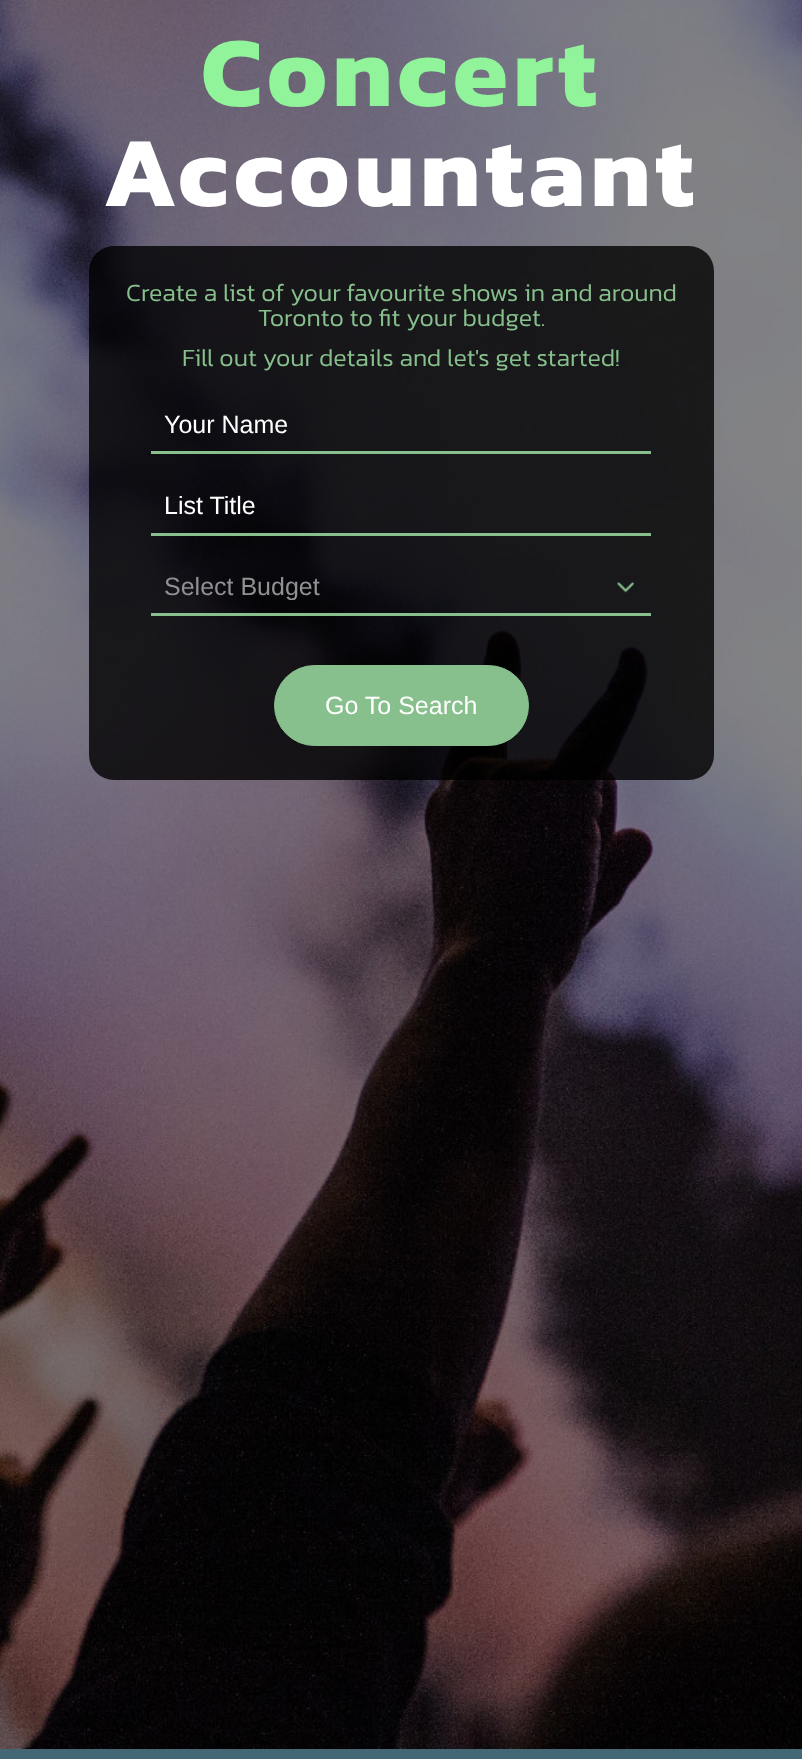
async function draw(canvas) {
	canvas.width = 802;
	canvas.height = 1759;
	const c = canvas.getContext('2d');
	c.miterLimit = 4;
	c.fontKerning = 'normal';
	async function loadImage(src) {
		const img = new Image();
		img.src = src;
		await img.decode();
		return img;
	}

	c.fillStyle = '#fff';
	c.fillRect(0, 0, 802, 1759);
	c.drawImage(await loadImage('img1.png'), 0, 0, 802, 1749);
	c.letterSpacing = '5px';
	c.font = 'bold 100px Kanit';
	c.fillStyle = '#91f39a';
	c.fillText('Concert', 201, 106);
	c.fillStyle = '#fff';
	c.fillText('Accountant', 103, 206);
	c.fillStyle = '#000000cc';
	c.beginPath();
	c.roundRect(89, 246, 625, 534, 25);
	c.fill();
	c.letterSpacing = '0px';
	c.font = '300 25px Kanit';
	c.fillStyle = '#87c08d';
	for (const [text, x, y] of [
		['Create a list of your favourite shows in and around', 126, 301],
		['Toronto to fit your budget.', 258, 326],
		['Fill out your details and let\'s get started!', 182, 366],
	]) {
		c.fillText(text, x, y);
	}
	c.fillRect(151, 451, 500, 3);
	c.font = '25px Liberation Sans';
	c.fillStyle = '#fff';
	c.fillText('Your Name', 164, 433);
	c.fillStyle = '#87c08d';
	c.fillRect(151, 533, 500, 3);
	c.fillStyle = '#fff';
	c.fillText('List Title', 164, 514);
	c.drawImage(await loadImage('img2.png'), 617, 582, 17, 11);
	c.fillStyle = '#87c08d';
	c.fillRect(151, 613, 500, 3);
	c.save();
	c.beginPath();
	c.rect(164, 573, 475, 27);
	c.clip();
	c.fillStyle = '#929093';
	c.fillText('Select Budget', 164, 595);
	c.restore();
	c.beginPath();
	c.roundRect(274.5, 665.5, 254, 80, 40);
	c.fill();
	c.strokeStyle = '#87c08d';
	c.stroke();
	c.fillStyle = '#fff';
	c.fillText('Go To Search', 325, 714);
	c.fillStyle = '#436775';
	c.fillRect(0, 1749, 802, 10);
}

draw(document.querySelector('canvas'));
